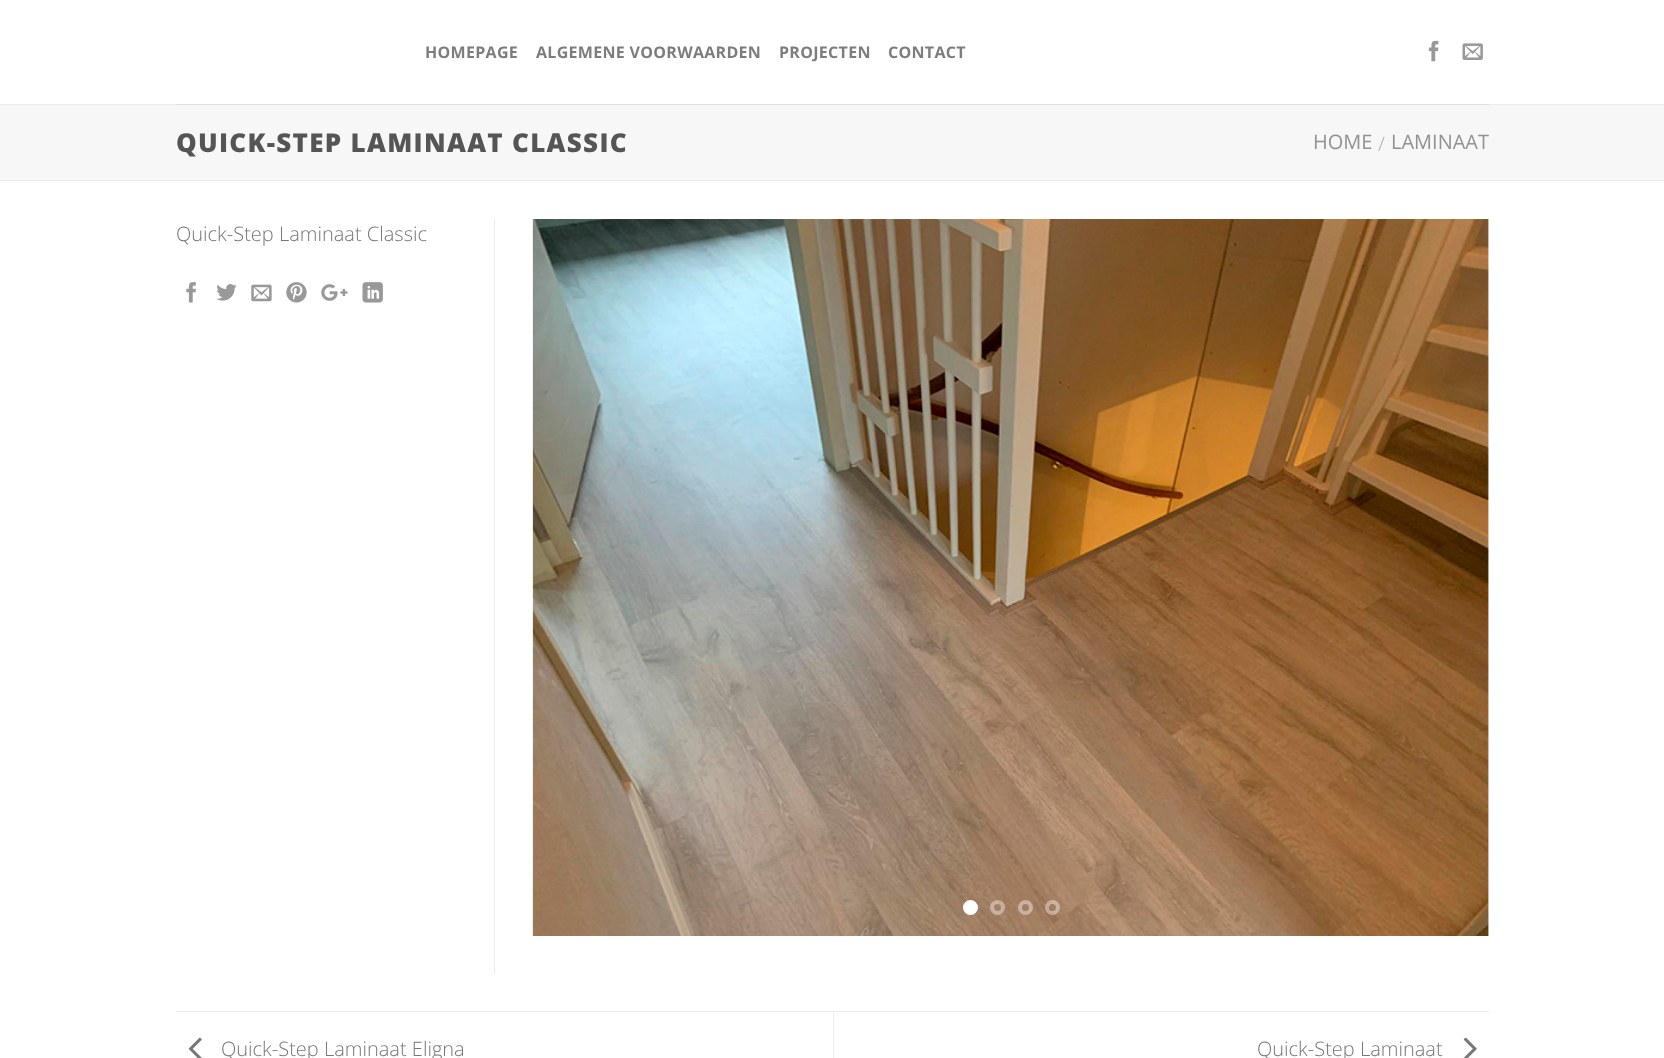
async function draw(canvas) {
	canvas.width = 1664;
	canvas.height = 1058;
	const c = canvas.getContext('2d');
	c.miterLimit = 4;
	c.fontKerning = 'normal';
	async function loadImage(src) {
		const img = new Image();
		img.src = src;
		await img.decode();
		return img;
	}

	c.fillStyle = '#fff';
	c.fillRect(0, 0, 1664, 1058);
	c.letterSpacing = '0.3px';
	c.font = 'bold 16px Open Sans';
	c.fillStyle = '#7d7d7d';
	for (const [text, x, y] of [
		['HOMEPAGE', 425, 58],
		['ALGEMENE VOORWAARDEN', 536, 58],
		['PROJECTEN', 779, 58],
		['CONTACT', 888, 58],
	]) {
		c.fillText(text, x, y);
	}
	c.drawImage(await loadImage('img1.png'), 1428, 40, 11, 22);
	c.drawImage(await loadImage('img2.png'), 1462, 43, 21, 17);
	for (const [x, y, w, h, color] of [
		[0, 104, 1664, 1, '#ececec'],
		[176, 104, 1313, 1, '#e0e0e0'],
		[0, 105, 1664, 75, '#f7f7f7'],
		[0, 180, 1664, 1, '#ececec'],
	]) {
		c.fillStyle = color;
		c.fillRect(x, y, w, h);
	}
	c.letterSpacing = '1.3px';
	c.font = '800 26px Open Sans';
	c.fillStyle = '#555';
	c.fillText('QUICK-STEP LAMINAAT CLASSIC', 176, 152);
	c.letterSpacing = '0px';
	c.font = '20px Open Sans';
	c.fillStyle = '#929292';
	c.fillText('HOME', 1313, 149);
	c.font = '300 20px Open Sans';
	c.fillStyle = '#acacac';
	c.fillText('/', 1378, 151);
	c.font = '20px Open Sans';
	c.fillStyle = '#929292';
	c.fillText('LAMINAAT', 1391, 149);
	c.fillStyle = '#ececec';
	c.fillRect(494, 219, 1, 755);
	c.font = '300 20px Open Sans';
	c.fillStyle = '#777';
	c.fillText('Quick-Step Laminaat Classic', 176, 241);
	c.drawImage(await loadImage('img3.png'), 186, 282, 10, 21);
	c.drawImage(await loadImage('img4.png'), 216, 284, 21, 17);
	c.drawImage(await loadImage('img5.png'), 251, 284, 21, 18);
	c.drawImage(await loadImage('img6.png'), 286, 282, 21, 21);
	c.drawImage(await loadImage('img7.png'), 321, 284, 27, 17);
	c.drawImage(await loadImage('img8.png'), 362, 282, 21, 21);
	c.drawImage(await loadImage('img9.png'), 532, 219, 957, 717);
	c.fillStyle = '#fff';
	c.beginPath();
	c.arc(970.5, 907.5, 5.5, 0, 2 * Math.PI);
	c.fill();
	c.strokeStyle = '#fff';
	c.lineWidth = 4;
	c.stroke();
	c.beginPath();
	c.arc(997.5, 907.5, 5.5, 0, 2 * Math.PI);
	c.strokeStyle = '#ffffff66';
	c.stroke();
	c.beginPath();
	c.arc(1025.5, 907.5, 5.5, 0, 2 * Math.PI);
	c.stroke();
	c.beginPath();
	c.arc(1052.5, 907.5, 5.5, 0, 2 * Math.PI);
	c.stroke();
	c.fillStyle = '#ececec';
	c.fillRect(176, 1011, 1313, 1);
	c.drawImage(await loadImage('img10.png'), 188, 1037, 14, 21);
	c.fillStyle = '#777';
	c.fillText('Quick-Step Laminaat Eligna', 221, 1056);
	c.fillStyle = '#ececec';
	c.fillRect(833, 1013, 1, 45);
	c.fillStyle = '#777';
	c.fillText('Quick-Step Laminaat', 1257, 1056);
	c.drawImage(await loadImage('img11.png'), 1463, 1037, 14, 21);
}

draw(document.querySelector('canvas'));
